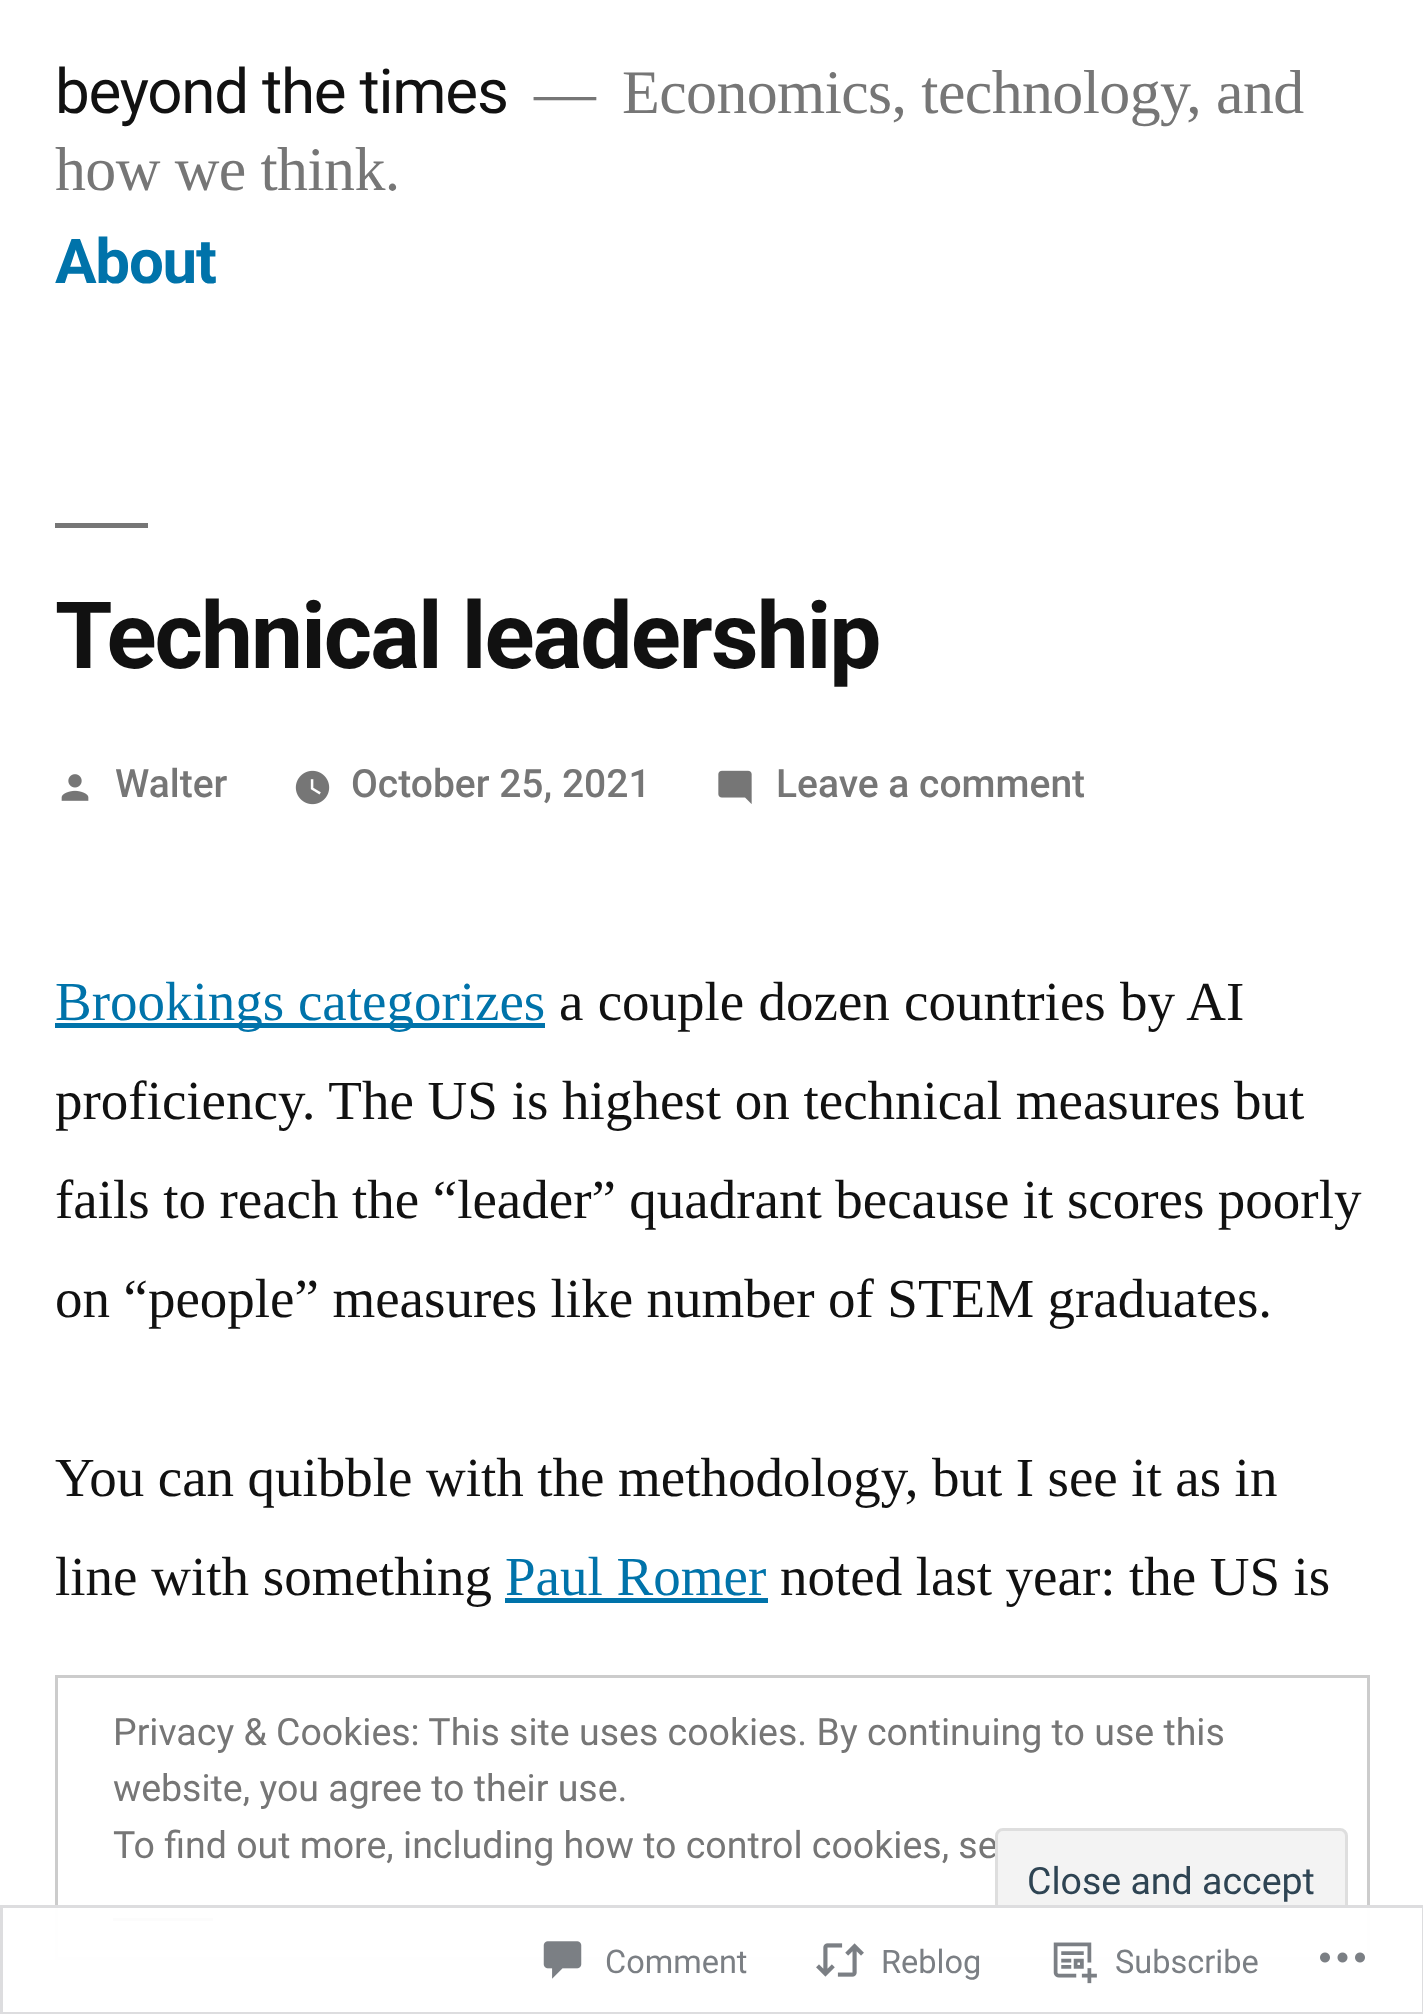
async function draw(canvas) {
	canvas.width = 1423;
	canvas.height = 2014;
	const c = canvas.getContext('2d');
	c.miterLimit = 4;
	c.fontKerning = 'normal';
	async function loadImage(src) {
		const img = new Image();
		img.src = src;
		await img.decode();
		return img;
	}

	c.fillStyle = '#fff';
	c.fillRect(0, 0, 1423, 2014);
	c.letterSpacing = '-1.25px';
	c.font = '61.9px Roboto';
	c.fillStyle = '#111';
	c.fillText('beyond the times', 55, 113);
	c.letterSpacing = '-0.6px';
	c.font = '61.9px Liberation Serif';
	c.fillStyle = '#767676';
	for (const [text, x, y] of [
		['—', 534, 113],
		['Economics, technology, and', 622, 113],
		['how we think.', 55, 190],
	]) {
		c.fillText(text, x, y);
	}
	c.letterSpacing = '-1.25px';
	c.font = 'bold 61.9px Roboto';
	c.fillStyle = '#0073aa';
	c.fillText('About', 55, 283);
	c.fillStyle = '#767676';
	c.fillRect(55, 523, 93, 5);
	c.letterSpacing = '-1.9px';
	c.font = 'bold 92.75px Roboto';
	c.fillStyle = '#111';
	c.fillText('Technical leadership', 55, 668);
	c.drawImage(await loadImage('img1.png'), 61, 774, 28, 27);
	c.letterSpacing = '0px';
	c.font = '500 39px Roboto';
	c.fillStyle = '#767676';
	c.fillText('Walter', 115, 797);
	c.drawImage(await loadImage('img2.png'), 295, 770, 35, 35);
	c.fillText('October 25, 2021', 351, 797);
	c.drawImage(await loadImage('img3.png'), 718, 770, 34, 34);
	c.fillText('Leave a comment', 776, 797);
	c.fillStyle = '#0073aa';
	c.fillRect(55, 1023, 490, 5);
	c.font = '55px Liberation Serif';
	c.fillText('Brookings categorizes', 55, 1020);
	c.wordSpacing = '0.5px';
	c.fillStyle = '#111';
	c.fillText('a couple dozen countries by AI', 559, 1020);
	c.wordSpacing = '0px';
	c.fillText('proficiency. The US is highest on technical measures but', 55, 1119);
	c.wordSpacing = '-0.25px';
	for (const [text, x, y] of [
		['fails to reach the “leader” quadrant because it scores poorly', 55, 1218],
		['on “people” measures like number of STEM graduates.', 55, 1317],
		['You can quibble with the methodology, but I see it as in', 55, 1496],
	]) {
		c.fillText(text, x, y);
	}
	c.wordSpacing = '0px';
	c.fillText('line with something', 55, 1595);
	c.fillStyle = '#0073aa';
	c.fillText('Paul Romer', 505, 1595);
	c.fillRect(505, 1598, 263, 5);
	c.wordSpacing = '-0.25px';
	c.fillStyle = '#111';
	c.fillText('noted last year: the US is', 780, 1595);
	c.strokeStyle = '#ccc';
	c.lineWidth = 3;
	c.strokeRect(56.5, 1676.5, 1312, 282);
	c.wordSpacing = '0px';
	c.font = '37.5px Roboto';
	c.fillStyle = '#767676';
	for (const [text, x, y] of [
		['Privacy & Cookies: This site uses cookies. By continuing to use this', 113, 1745],
		['website, you agree to their use.', 113, 1801],
		['To find out more, including how to control cookies, se', 113, 1858],
	]) {
		c.fillText(text, x, y);
	}
	c.fillStyle = '#f3f3f3';
	c.beginPath();
	c.roundRect(996.5, 1829.5, 350, 107, 6.5);
	c.fill();
	c.strokeStyle = '#dedede';
	c.stroke();
	c.fillStyle = '#2e4453';
	c.fillText('Close and accept', 1027, 1894);
	c.fillStyle = '#767676';
	c.fillRect(113, 1918, 100, 3);
	c.fillStyle = '#fffffffa';
	c.fillRect(55, 1905, 1315, 55);
	c.strokeStyle = '#dcdcdefa';
	c.strokeRect(1.5, 1906.5, 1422, 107);
	c.drawImage(await loadImage('img4.png'), 543, 1941, 39, 38);
	c.font = '32.5px Roboto';
	c.fillStyle = '#7b7f84';
	c.fillText('Comment', 605, 1973);
	c.drawImage(await loadImage('img5.png'), 816, 1943, 48, 34);
	c.fillText('Reblog', 881, 1973);
	c.drawImage(await loadImage('img6.png'), 1053, 1942, 44, 42);
	c.fillText('Subscribe', 1115, 1973);
	c.drawImage(await loadImage('img7.png'), 1320, 1952, 45, 11);
}

draw(document.querySelector('canvas'));
